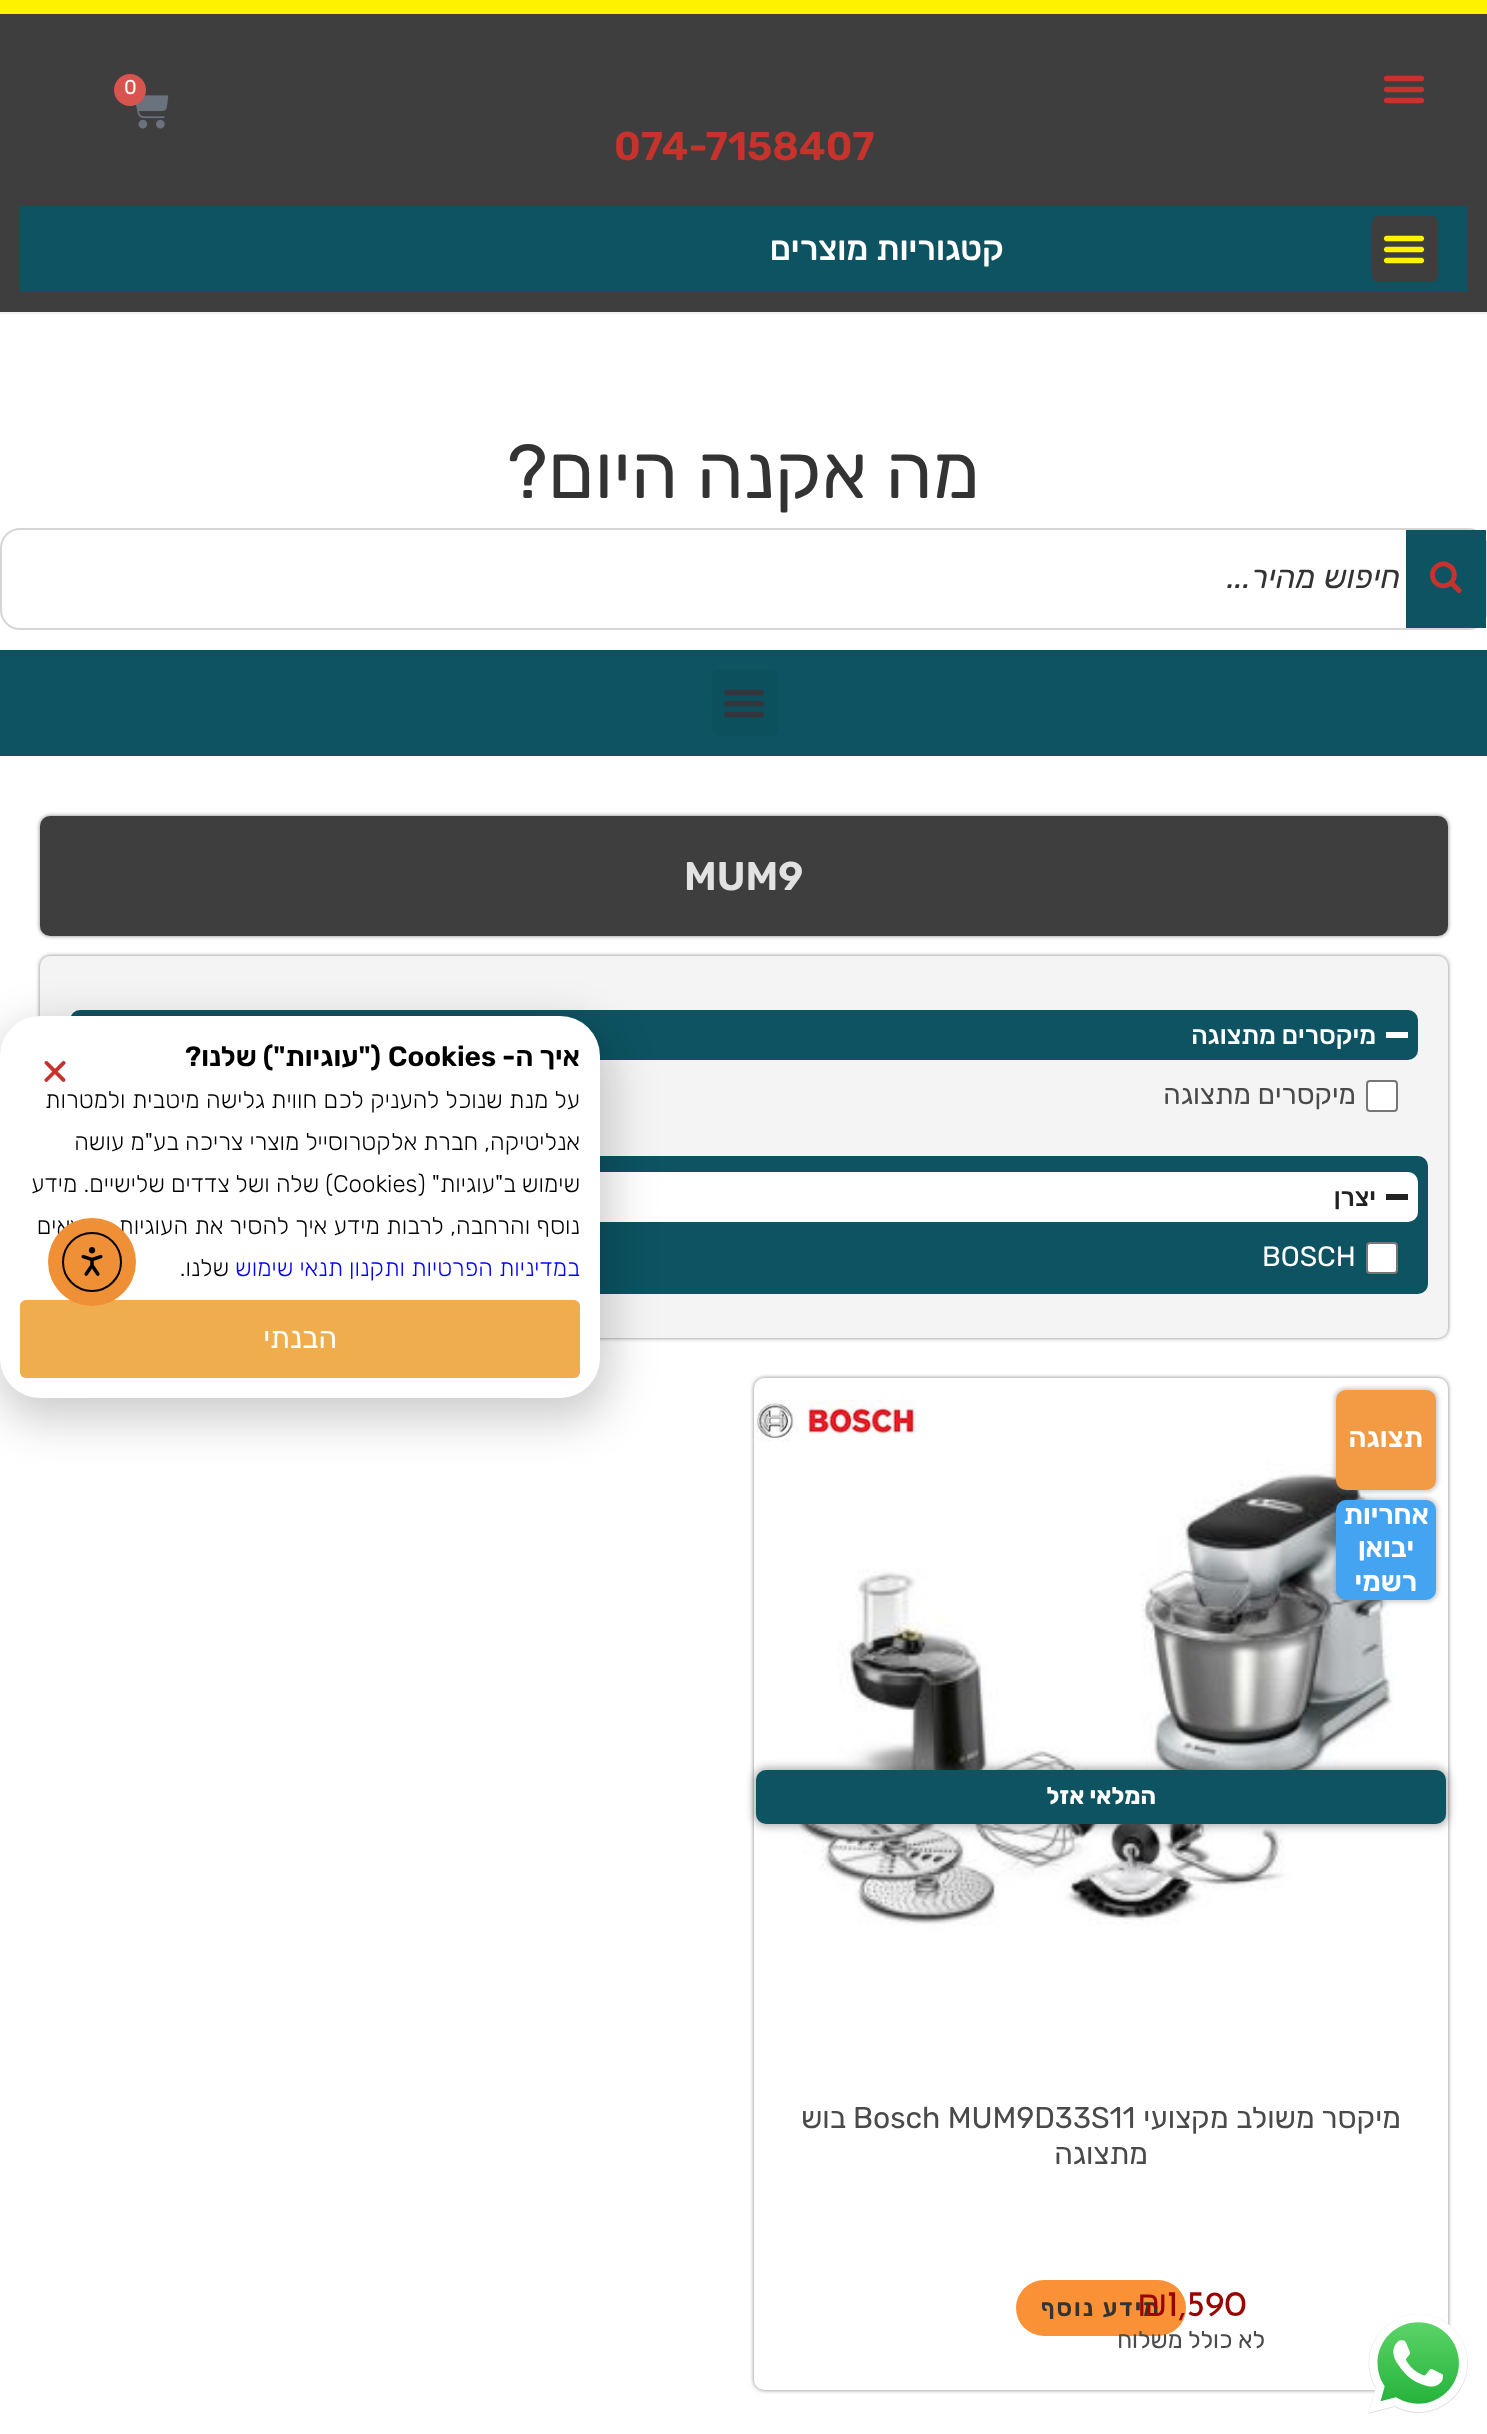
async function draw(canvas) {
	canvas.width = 1487;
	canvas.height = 2434;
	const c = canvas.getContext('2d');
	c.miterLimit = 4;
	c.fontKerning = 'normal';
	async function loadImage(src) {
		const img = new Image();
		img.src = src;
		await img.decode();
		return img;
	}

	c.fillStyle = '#fff';
	c.fillRect(0, 0, 1487, 2434);
	for (const [x, y, w, h, color] of [
		[0, 312, 1487, 2, '#f1f1f1'],
		[0, 0, 1487, 14, '#fff200'],
		[0, 14, 1487, 298, '#3e3e3e'],
	]) {
		c.fillStyle = color;
		c.fillRect(x, y, w, h);
	}
	c.drawImage(await loadImage('img1.png'), 1383, 75, 42, 29);
	c.drawImage(await loadImage('img2.png'), 135, 95, 34, 34);
	c.fillStyle = '#d9534f';
	c.beginPath();
	c.arc(130, 90, 16, 0, 2 * Math.PI);
	c.fill();
	c.font = '20px Rubik';
	c.fillStyle = '#fff';
	c.fillText('0', 124, 94);
	c.font = '600 40px Rubik';
	c.fillStyle = '#c7332c';
	c.fillText('074-7158407', 614, 160);
	c.fillStyle = '#0d5362';
	c.fillRect(20, 206, 1448, 86);
	c.fillStyle = '#3e3e3e';
	c.beginPath();
	c.roundRect(1372, 216, 66, 66, 6);
	c.fill();
	c.drawImage(await loadImage('img3.png'), 1383, 235, 42, 29);
	c.direction = 'rtl';
	c.font = '500 34px Rubik';
	c.fillStyle = '#fff';
	c.fillText('קטגוריות מוצרים', 1004, 260);
	c.font = '76px Rubik';
	c.fillStyle = '#333';
	c.fillText('מה אקנה היום?', 980, 498);
	c.beginPath();
	c.roundRect(1, 529, 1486, 100, 19);
	c.strokeStyle = '#d6d6d6';
	c.lineWidth = 2;
	c.stroke();
	c.fillStyle = '#0d5362';
	c.fillRect(1406, 530, 80, 98);
	c.drawImage(await loadImage('img4.png'), 1430, 561, 32, 33);
	c.font = 'italic 32px Rubik';
	c.fillStyle = '#333';
	c.fillText('חיפוש מהיר...', 1400, 588);
	c.fillStyle = '#0d5362';
	c.fillRect(0, 650, 1487, 106);
	c.fillStyle = '#0c4f5d';
	c.beginPath();
	c.roundRect(712, 670, 66, 66, 6);
	c.fill();
	c.drawImage(await loadImage('img5.png'), 724, 689, 40, 29);
	c.fillStyle = '#00000080';
	c.filter = 'blur(2px)';
	c.beginPath();
	c.roundRect(40, 816, 1408, 120, 10);
	c.fill();
	c.filter = 'none';
	c.fillStyle = '#3e3e3e';
	c.beginPath();
	c.roundRect(40, 816, 1408, 120, 10);
	c.fill();
	c.direction = 'ltr';
	c.font = '600 40px Rubik';
	c.fillStyle = '#e2e2e2';
	c.fillText('MUM9', 684, 890);
	c.fillStyle = '#00000080';
	c.filter = 'blur(2px)';
	c.beginPath();
	c.roundRect(40, 956, 1408, 382, 10);
	c.fill();
	c.filter = 'none';
	c.fillStyle = '#f4f4f4';
	c.beginPath();
	c.roundRect(40, 956, 1408, 382, 10);
	c.fill();
	c.fillStyle = '#0d5362';
	c.beginPath();
	c.roundRect(70, 1010, 1348, 50, 10);
	c.fill();
	c.fillStyle = '#fff';
	c.fillRect(1386, 1032, 22, 6);
	c.direction = 'rtl';
	c.font = '500 26px Rubik';
	c.fillText('מיקסרים מתצוגה', 1376, 1044);
	c.beginPath();
	c.roundRect(1367, 1081, 30, 30, 3);
	c.fill();
	c.strokeStyle = '#767676';
	c.stroke();
	c.font = '28px Rubik';
	c.fillStyle = '#4a4a4a';
	c.fillText('מיקסרים מתצוגה', 1356, 1104);
	c.fillStyle = '#0d5362';
	c.beginPath();
	c.roundRect(60, 1156, 1368, 138, 10);
	c.fill();
	c.fillStyle = '#fff';
	c.beginPath();
	c.roundRect(70, 1172, 1348, 50, 10);
	c.fill();
	c.fillStyle = '#222';
	c.fillRect(1386, 1194, 22, 6);
	c.font = '500 26px Rubik';
	c.fillText('יצרן', 1376, 1206);
	c.fillStyle = '#fff';
	c.beginPath();
	c.roundRect(1367, 1243, 30, 30, 3);
	c.fill();
	c.stroke();
	c.direction = 'ltr';
	c.font = '28px Rubik';
	c.fillText('BOSCH', 1262, 1266);
	c.fillStyle = '#00000080';
	c.filter = 'blur(2px)';
	c.beginPath();
	c.roundRect(754, 1378, 694, 1012, 10);
	c.fill();
	c.filter = 'none';
	c.fillStyle = '#fff';
	c.beginPath();
	c.roundRect(754, 1378, 694, 1012, 10);
	c.fill();
	c.drawImage(await loadImage('img7.png'), 794, 1428, 601, 623);
	c.drawImage(await loadImage('img6.png'), 756, 1400, 160, 42);
	c.fillStyle = '#5353534d';
	c.filter = 'blur(2px)';
	c.beginPath();
	c.roundRect(1334, 1388, 104, 104, 12);
	c.fill();
	c.filter = 'none';
	c.fillStyle = '#f29b44';
	c.beginPath();
	c.roundRect(1336, 1390, 100, 100, 10);
	c.fill();
	c.direction = 'rtl';
	c.font = '600 28px Rubik';
	c.fillStyle = '#fff';
	c.fillText('תצוגה', 1423, 1447);
	c.fillStyle = '#5353534d';
	c.filter = 'blur(2px)';
	c.beginPath();
	c.roundRect(1334, 1498, 104, 104, 12);
	c.fill();
	c.filter = 'none';
	c.fillStyle = '#44a4f2';
	c.beginPath();
	c.roundRect(1336, 1500, 100, 100, 10);
	c.fill();
	c.fillStyle = '#fff';
	for (const [text, x, y] of [
		['אחריות', 1429, 1524],
		['יבואן', 1414, 1557],
		['רשמי', 1417, 1591],
	]) {
		c.fillText(text, x, y);
	}
	c.fillStyle = '#53535380';
	c.filter = 'blur(5px)';
	c.beginPath();
	c.roundRect(754, 1768, 694, 58, 12);
	c.fill();
	c.filter = 'none';
	c.fillStyle = '#0d5362';
	c.beginPath();
	c.roundRect(756, 1770, 690, 54, 10);
	c.fill();
	c.font = 'bold 24px Rubik';
	c.fillStyle = '#fff';
	c.fillText('המלאי אזל', 1156, 1804);
	c.font = '30px Rubik';
	c.fillStyle = '#4a4a4a';
	c.fillText('מיקסר משולב מקצועי', 1401, 2128);
	c.direction = 'ltr';
	c.fillText('Bosch MUM9D33S11', 853, 2128);
	c.direction = 'rtl';
	c.fillText('בוש', 846, 2128);
	c.fillText('מתצוגה', 1148, 2164);
	c.fillStyle = '#fa9137';
	c.beginPath();
	c.roundRect(1016, 2280, 170, 56, 28);
	c.fill();
	c.direction = 'ltr';
	c.font = '36px Josefin Sans';
	c.fillStyle = '#990404';
	c.fillText('1,590', 1167, 2316);
	c.letterSpacing = '2px';
	c.direction = 'rtl';
	c.font = '600 24px Rubik';
	c.fillStyle = '#333';
	c.fillText('מידע נוסף', 1161, 2316);
	c.letterSpacing = '0px';
	c.direction = 'ltr';
	c.font = '36px Liberation Sans';
	c.fillStyle = '#990404';
	c.fillText('₪', 1137, 2316);
	c.direction = 'rtl';
	c.font = '24px Rubik';
	c.fillStyle = '#4a4a4a';
	c.fillText('לא כולל משלוח', 1265, 2348);
	c.fillStyle = '#00000033';
	c.filter = 'blur(23px)';
	c.beginPath();
	c.roundRect(-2, 1026, 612, 394, 46);
	c.fill();
	c.filter = 'none';
	c.fillStyle = '#fff';
	c.beginPath();
	c.roundRect(0, 1016, 600, 382, 40);
	c.fill();
	c.font = '600 28px Rubik';
	c.fillStyle = '#000';
	c.fillText('איך ה-', 580, 1066);
	c.direction = 'ltr';
	c.fillText('Cookies', 388, 1066);
	c.direction = 'rtl';
	c.fillText('("עוגיות") שלנו?', 381, 1066);
	c.wordSpacing = '0.25px';
	c.font = '300 24px Rubik';
	c.fillText('על מנת שנוכל להעניק לכם חווית גלישה מיטבית ולמטרות', 580, 1108);
	c.wordSpacing = '0px';
	c.fillText('אנליטיקה, חברת אלקטרוסייל מוצרי צריכה בע"מ עושה', 580, 1150);
	c.fillText('שימוש ב"עוגיות" (', 580, 1192);
	c.direction = 'ltr';
	c.fillText('Cookies', 333, 1192);
	c.direction = 'rtl';
	c.fillText(') שלה ושל צדדים שלישיים. מידע', 333, 1192);
	c.wordSpacing = '0.25px';
	c.fillText('נוסף והרחבה, לרבות מידע איך להסיר את העוגיות, נמצאים', 580, 1234);
	c.wordSpacing = '0px';
	c.fillStyle = '#00f';
	for (const [text, x, y] of [
		['במדיניות הפרטיות', 580, 1276],
		['ותקנון', 405, 1276],
		['תנאי שימוש', 343, 1276],
	]) {
		c.fillText(text, x, y);
	}
	c.fillStyle = '#000';
	c.fillText('שלנו.', 229, 1276);
	c.fillStyle = '#f0ad4e';
	c.beginPath();
	c.roundRect(20, 1300, 560, 78, 6);
	c.fill();
	c.font = '30px Rubik';
	c.fillStyle = '#fff';
	c.fillText('הבנתי', 337, 1348);
	c.drawImage(await loadImage('img8.png'), 44, 1060, 22, 22);
	c.fillStyle = '#ef9036';
	c.beginPath();
	c.arc(92, 1262, 44, 0, 2 * Math.PI);
	c.fill();
	c.beginPath();
	c.arc(92, 1262, 29, 0, 2 * Math.PI);
	c.strokeStyle = '#000';
	c.stroke();
	c.drawImage(await loadImage('img9.png'), 81, 1247, 22, 29);
	c.drawImage(await loadImage('img10.png'), 1368, 2314, 100, 100);
}

draw(document.querySelector('canvas'));
